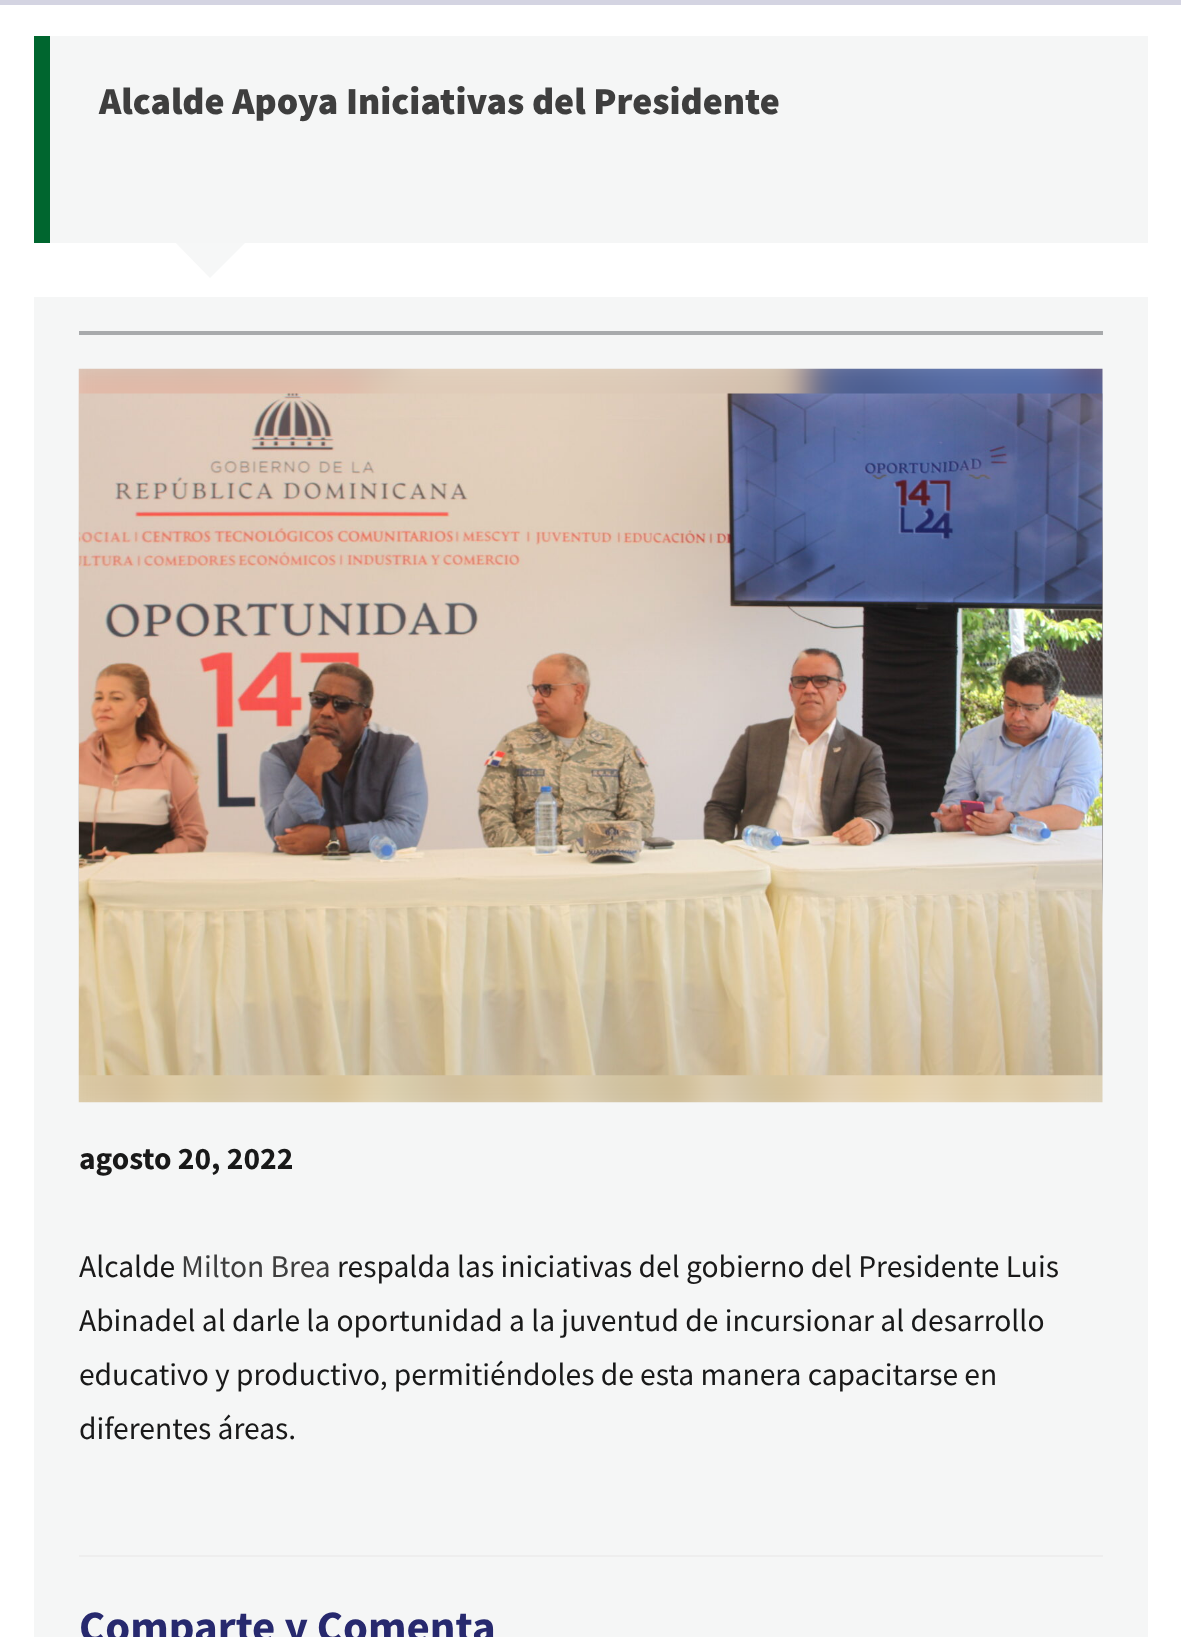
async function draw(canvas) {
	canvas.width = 1181;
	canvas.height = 1637;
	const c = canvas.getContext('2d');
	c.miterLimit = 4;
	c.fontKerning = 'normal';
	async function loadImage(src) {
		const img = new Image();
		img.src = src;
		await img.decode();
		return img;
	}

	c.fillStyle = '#fff';
	c.fillRect(0, 0, 1181, 1637);
	c.fillStyle = '#d4d4e2';
	c.fillRect(0, 0, 1181, 5);
	c.fillStyle = '#f6f7f7';
	c.beginPath();
	c.moveTo(210, 205);
	c.lineTo(247, 241);
	c.lineTo(210, 278);
	c.lineTo(174, 241);
	c.closePath();
	c.fill();
	c.fillStyle = '#f5f6f6';
	c.fillRect(50, 36, 1098, 207);
	c.fillStyle = '#00662f';
	c.fillRect(34, 36, 16, 207);
	c.font = '900 38.25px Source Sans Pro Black';
	c.fillStyle = '#3e3e3e';
	c.fillText('Alcalde Apoya Iniciativas del Presidente', 99, 114);
	c.fillStyle = '#f5f6f6';
	c.fillRect(34, 297, 1114, 1340);
	c.fillStyle = '#a8aaac';
	c.fillRect(79, 331, 1024, 4);
	c.drawImage(await loadImage('img1.png'), 78, 368, 1025, 735);
	c.drawImage(await loadImage('img2.png'), 78, 393, 1025, 683);
	c.font = 'bold 31.5px Source Sans Pro';
	c.fillStyle = '#191919';
	c.fillText('agosto 20, 2022', 79, 1169);
	c.font = '31.5px Source Sans Pro';
	c.fillText('Alcalde', 79, 1277);
	c.fillStyle = '#3e3e3e';
	c.fillText('Milton Brea', 181, 1277);
	c.fillStyle = '#191919';
	for (const [text, x, y] of [
		['respalda las iniciativas del gobierno del Presidente Luis', 337, 1277],
		['Abinadel al darle la oportunidad a la juventud de incursionar al desarrollo', 79, 1331],
		['educativo y productivo, permitiéndoles de esta manera capacitarse en', 79, 1385],
		['diferentes áreas.', 79, 1439],
	]) {
		c.fillText(text, x, y);
	}
	c.fillStyle = '#eee';
	c.fillRect(79, 1555, 1024, 2);
	c.font = 'bold 45px Source Sans Pro';
	c.fillStyle = '#27296e';
	c.fillText('Comparte y Comenta', 79, 1642);
}

draw(document.querySelector('canvas'));
